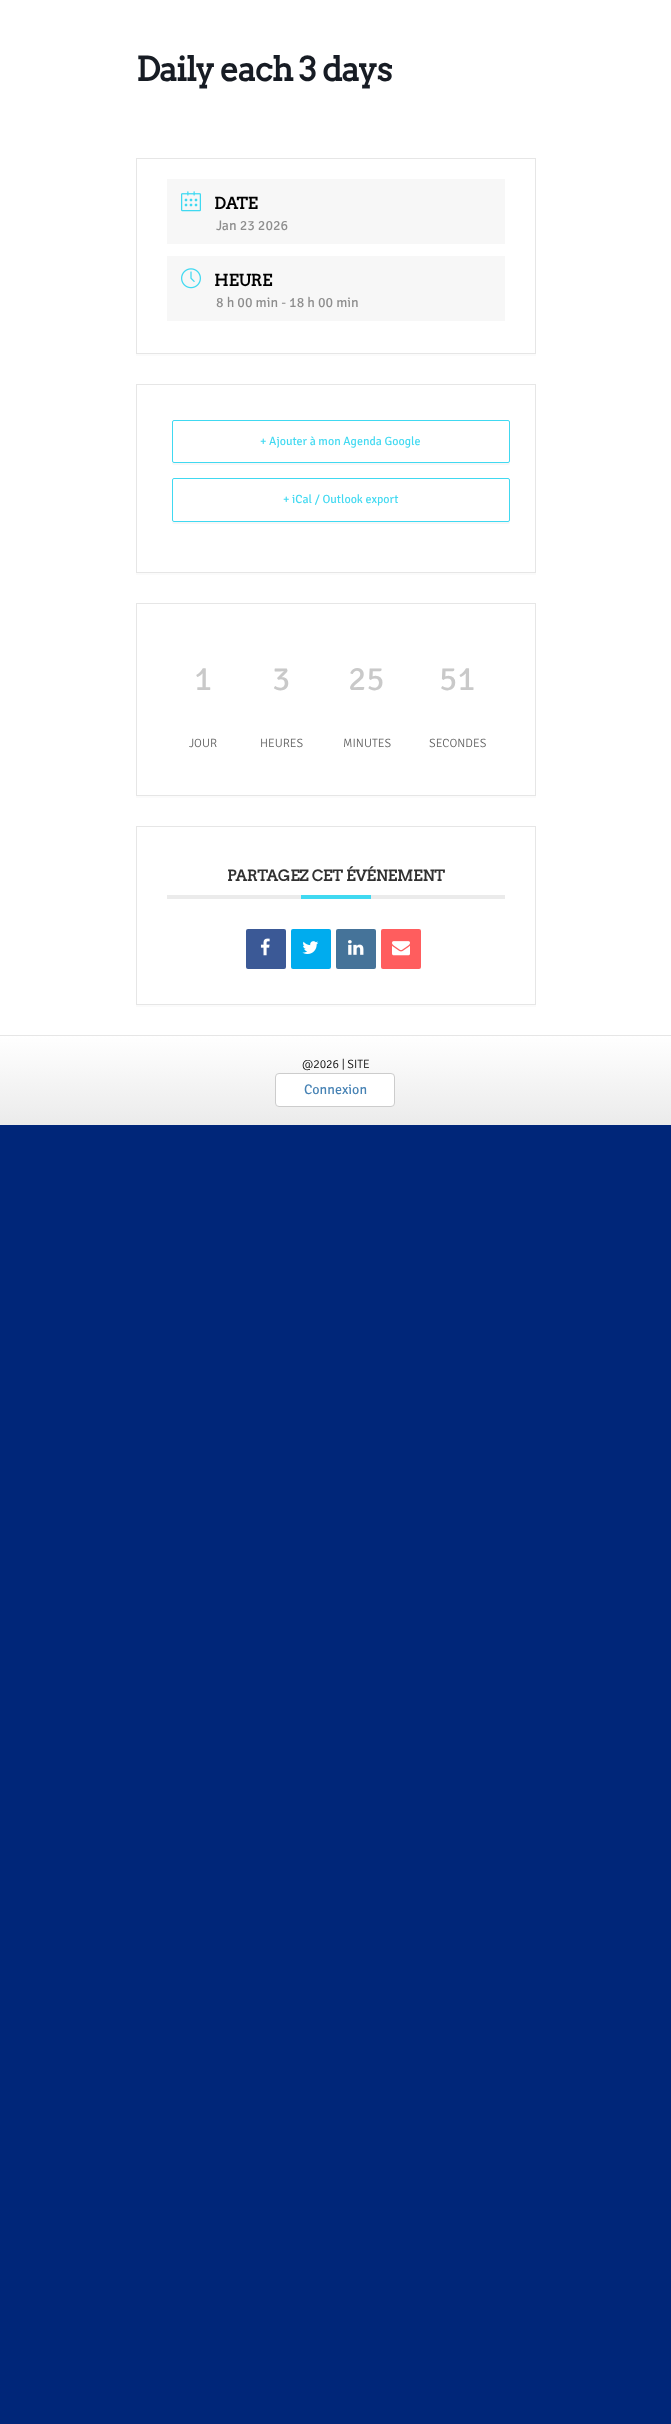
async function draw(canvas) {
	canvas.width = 671;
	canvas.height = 2424;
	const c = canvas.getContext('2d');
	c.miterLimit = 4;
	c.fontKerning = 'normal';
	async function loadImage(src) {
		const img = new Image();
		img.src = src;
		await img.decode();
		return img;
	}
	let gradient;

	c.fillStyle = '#002679';
	c.fillRect(0, 0, 671, 2424);
	c.fillStyle = '#fff';
	c.fillRect(0, 0, 671, 1035);
	c.letterSpacing = '-1px';
	c.font = 'bold 33px Arvo';
	c.fillStyle = '#171c24';
	c.fillText('Daily each 3 days', 136, 81);
	c.fillStyle = '#fbfbfb';
	c.fillRect(136, 354, 400, 2);
	c.strokeStyle = '#e6e6e6';
	c.strokeRect(136.5, 158.5, 399, 195);
	c.fillStyle = '#f7f7f7';
	c.fillRect(167, 179, 338, 65);
	c.drawImage(await loadImage('img1.png'), 181, 191, 20, 21);
	c.letterSpacing = '0px';
	c.font = 'bold 16px Arvo';
	c.fillStyle = '#000';
	c.fillText('DATE', 214, 209);
	c.font = '14px Signika Negative';
	c.fillStyle = '#8d8d8d';
	c.fillText('Jan 23 2026', 216, 230);
	c.fillStyle = '#f7f7f7';
	c.fillRect(167, 256, 338, 65);
	c.drawImage(await loadImage('img2.png'), 181, 268, 20, 21);
	c.font = 'bold 16px Arvo';
	c.fillStyle = '#000';
	c.fillText('HEURE', 214, 286);
	c.font = '14px Signika Negative';
	c.fillStyle = '#8d8d8d';
	c.fillText('8 h 00 min - 18 h 00 min', 216, 307);
	c.fillStyle = '#fbfbfb';
	c.fillRect(136, 573, 400, 2);
	c.strokeRect(136.5, 384.5, 399, 188);
	c.fillStyle = '#f7f7f7';
	c.beginPath();
	c.moveTo(172, 461);
	c.lineTo(172, 463);
	c.bezierCurveTo(172, 464, 173, 465, 174, 465);
	c.lineTo(508, 465);
	c.bezierCurveTo(509, 465, 510, 464, 510, 463);
	c.lineTo(510, 461);
	c.bezierCurveTo(510, 462, 509, 463, 508, 463);
	c.lineTo(174, 463);
	c.bezierCurveTo(173, 463, 172, 462, 172, 461);
	c.closePath();
	c.fill();
	c.beginPath();
	c.roundRect(172.5, 420.5, 337, 42, 1.5);
	c.strokeStyle = '#40d9f1';
	c.stroke();
	c.font = '12px Signika Negative';
	c.fillStyle = '#40d9f1';
	c.fillText('+ Ajouter à mon Agenda Google', 260, 445);
	c.fillStyle = '#f7f7f7';
	c.beginPath();
	c.moveTo(172, 520);
	c.lineTo(172, 522);
	c.bezierCurveTo(172, 523, 173, 524, 174, 524);
	c.lineTo(508, 524);
	c.bezierCurveTo(509, 524, 510, 523, 510, 522);
	c.lineTo(510, 520);
	c.bezierCurveTo(510, 521, 509, 522, 508, 522);
	c.lineTo(174, 522);
	c.bezierCurveTo(173, 522, 172, 521, 172, 520);
	c.closePath();
	c.fill();
	c.beginPath();
	c.roundRect(172.5, 478.5, 337, 43, 1.5);
	c.stroke();
	c.fillStyle = '#40d9f1';
	c.fillText('+ iCal / Outlook export', 283, 503);
	c.fillStyle = '#fbfbfb';
	c.fillRect(136, 796, 400, 2);
	c.strokeStyle = '#e6e6e6';
	c.strokeRect(136.5, 603.5, 399, 192);
	c.font = '34px Signika Negative';
	c.fillStyle = '#c9c9c9';
	c.fillText('1', 194, 690);
	c.font = '300 12px Signika Negative';
	c.fillStyle = '#616161';
	c.fillText('JOUR', 189, 747);
	c.font = '34px Signika Negative';
	c.fillStyle = '#c9c9c9';
	c.fillText('3', 272, 690);
	c.font = '300 12px Signika Negative';
	c.fillStyle = '#616161';
	c.fillText('HEURES', 260, 747);
	c.font = '34px Signika Negative';
	c.fillStyle = '#c9c9c9';
	c.fillText('25', 348, 690);
	c.font = '300 12px Signika Negative';
	c.fillStyle = '#616161';
	c.fillText('MINUTES', 343, 747);
	c.font = '34px Signika Negative';
	c.fillStyle = '#c9c9c9';
	c.fillText('51', 439, 690);
	c.font = '300 12px Signika Negative';
	c.fillStyle = '#616161';
	c.fillText('SECONDES', 429, 747);
	c.fillStyle = '#fbfbfb';
	c.fillRect(136, 1005, 400, 2);
	c.strokeRect(136.5, 826.5, 399, 178);
	c.fillStyle = '#ebebeb';
	c.fillRect(167, 895, 338, 4);
	c.font = 'bold 15px Arvo';
	c.fillStyle = '#313131';
	c.fillText('PARTAGEZ CET ÉVÉNEMENT', 227, 881);
	c.fillStyle = '#40d9f1';
	c.fillRect(301, 895, 70, 4);
	c.fillStyle = '#3b5996';
	c.beginPath();
	c.roundRect(246, 929, 40, 40, 2);
	c.fill();
	c.drawImage(await loadImage('img3.png'), 260, 938, 10, 18);
	c.fillStyle = '#00acee';
	c.beginPath();
	c.roundRect(291, 929, 40, 40, 2);
	c.fill();
	c.drawImage(await loadImage('img4.png'), 302, 941, 17, 13);
	c.fillStyle = '#457399';
	c.beginPath();
	c.roundRect(336, 929, 40, 40, 2);
	c.fill();
	c.drawImage(await loadImage('img5.png'), 348, 940, 16, 15);
	c.fillStyle = '#ff5d5e';
	c.beginPath();
	c.roundRect(381, 929, 40, 40, 2);
	c.fill();
	c.drawImage(await loadImage('img6.png'), 392, 941, 18, 15);
	gradient = c.createLinearGradient(336, 1036, 336, 1125);
	gradient.addColorStop(0, '#fff');
	gradient.addColorStop(1, '#ebebeb');
	c.fillStyle = gradient;
	c.fillRect(0, 1036, 671, 89);
	c.fillStyle = '#e6e6e6';
	c.fillRect(0, 1035, 671, 1);
	c.font = '300 12px Signika Negative';
	c.fillStyle = '#000';
	c.fillText('@2026 | SITE', 302, 1068);
	c.fillStyle = '#fff';
	c.beginPath();
	c.roundRect(275.5, 1073.5, 119, 33, 3.5);
	c.fill();
	c.strokeStyle = '#ccc';
	c.stroke();
	c.font = '14px Signika Negative';
	c.fillStyle = '#4682b4';
	c.fillText('Connexion', 304, 1094);
}

draw(document.querySelector('canvas'));
